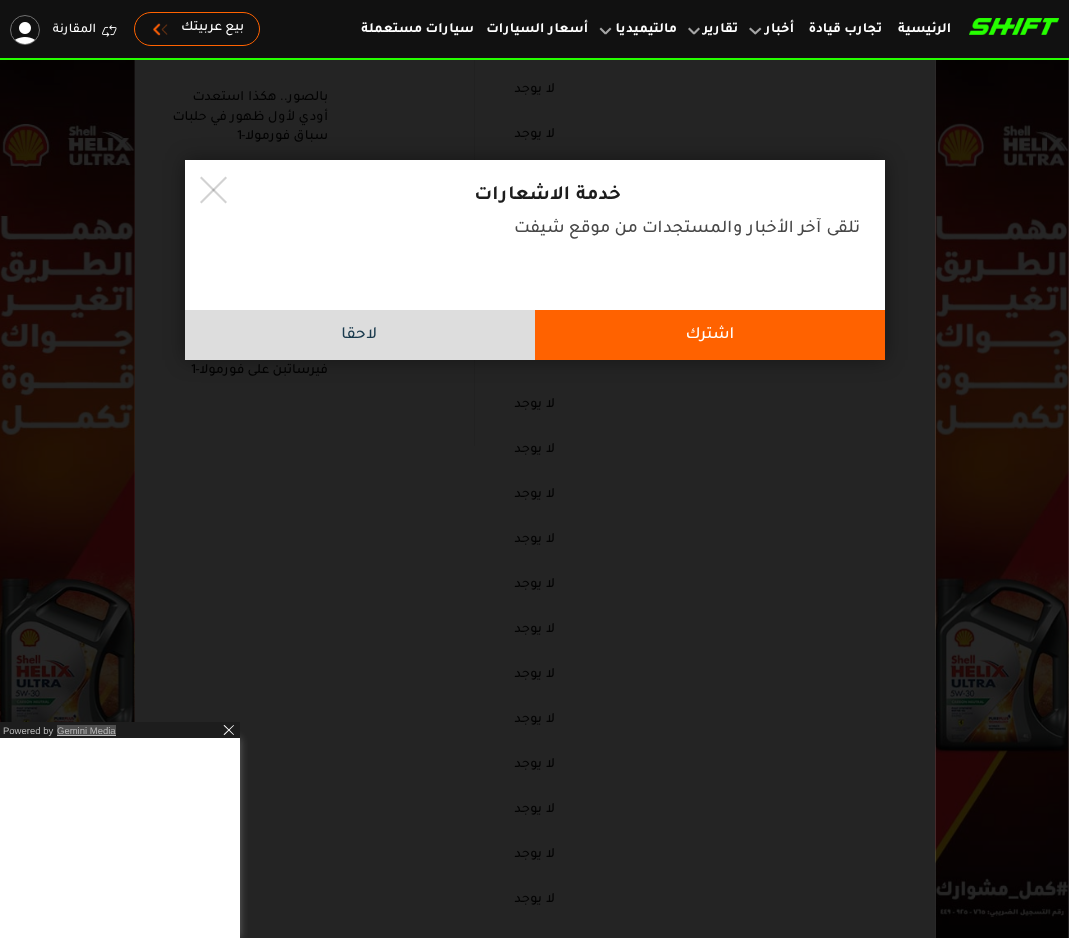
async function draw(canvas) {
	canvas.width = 1069;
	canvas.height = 938;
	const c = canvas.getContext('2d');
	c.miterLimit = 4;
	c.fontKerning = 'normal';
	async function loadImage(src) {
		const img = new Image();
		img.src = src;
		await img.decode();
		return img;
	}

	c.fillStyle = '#fff';
	c.fillRect(0, 0, 1069, 938);
	c.fillStyle = '#111';
	c.fillRect(0, 0, 1069, 58);
	c.fillStyle = '#26ff00';
	c.fillRect(0, 58, 1069, 2);
	c.drawImage(await loadImage('img1.png'), 969, 18, 90, 17);
	c.direction = 'rtl';
	c.font = 'bold 14px Tajawal';
	c.fillStyle = '#fff';
	for (const [text, x, y] of [
		['الرئيسية', 951, 32],
		['تجارب قيادة', 882, 32],
		['أخبار', 794, 32],
	]) {
		c.fillText(text, x, y);
	}
	c.fillStyle = '#a6a6a6';
	c.beginPath();
	c.moveTo(754, 33);
	c.lineTo(760, 27.5);
	c.lineTo(761.5, 29);
	c.lineTo(755.5, 34.5);
	c.closePath();
	c.fill();
	c.beginPath();
	c.moveTo(750.5, 27.5);
	c.lineTo(756.5, 33);
	c.lineTo(755, 34.5);
	c.lineTo(749, 29);
	c.closePath();
	c.fill();
	c.fillStyle = '#fff';
	c.fillText('تقارير', 738, 32);
	c.fillStyle = '#a6a6a6';
	c.beginPath();
	c.moveTo(693, 33);
	c.lineTo(698.5, 27.5);
	c.lineTo(700, 29);
	c.lineTo(694.5, 34.5);
	c.closePath();
	c.fill();
	c.beginPath();
	c.moveTo(689.5, 27.5);
	c.lineTo(695, 33);
	c.lineTo(693.5, 34.5);
	c.lineTo(688, 29);
	c.closePath();
	c.fill();
	c.fillStyle = '#fff';
	c.fillText('مالتيميديا', 677, 32);
	c.fillStyle = '#a6a6a6';
	c.beginPath();
	c.moveTo(604.5, 33);
	c.lineTo(610, 27.5);
	c.lineTo(611.5, 29);
	c.lineTo(606, 34.5);
	c.closePath();
	c.fill();
	c.beginPath();
	c.moveTo(601, 27.5);
	c.lineTo(606.5, 33);
	c.lineTo(605, 34.5);
	c.lineTo(599.5, 29);
	c.closePath();
	c.fill();
	c.fillStyle = '#fff';
	c.fillText('أسعار السيارات', 588, 32);
	c.fillText('سيارات مستعملة', 474, 32);
	c.beginPath();
	c.roundRect(134.5, 12.5, 125, 33, 16.5);
	c.strokeStyle = '#ff6200';
	c.stroke();
	c.font = '500 14px Tajawal';
	c.fillText('بيع عربيتك', 244, 30);
	c.drawImage(await loadImage('img2.png'), 153, 23, 15, 13);
	c.drawImage(await loadImage('img3.png'), 102, 25, 15, 12);
	c.font = '500 13px Tajawal';
	c.fillText('المقارنة', 96, 32);
	c.beginPath();
	c.arc(25, 30, 14.5, 0, 2 * Math.PI);
	c.strokeStyle = '#707070';
	c.stroke();
	c.drawImage(await loadImage('img4.png'), 15, 22, 20, 22);
	c.drawImage(await loadImage('img5.png'), 935, 60, 134, 878);
	c.drawImage(await loadImage('img6.png'), 0, 60, 135, 662);
	c.fillStyle = '#242424';
	c.fillRect(135, 60, 800, 878);
	c.font = '500 14px Tajawal';
	c.fillStyle = '#030303';
	for (const [text, x, y] of [
		['لا يوجد', 555, 92],
		['لا يوجد', 555, 137],
		['لا يوجد', 555, 407],
		['لا يوجد', 555, 452],
		['لا يوجد', 555, 497],
		['لا يوجد', 555, 542],
		['لا يوجد', 555, 587],
		['لا يوجد', 555, 632],
		['لا يوجد', 555, 677],
		['لا يوجد', 555, 722],
		['لا يوجد', 555, 767],
		['لا يوجد', 555, 812],
		['لا يوجد', 555, 857],
		['لا يوجد', 555, 902],
	]) {
		c.fillText(text, x, y);
	}
	c.fillStyle = '#212121';
	c.fillRect(474, 60, 1, 386);
	c.fillStyle = '#030303';
	for (const [text, x, y] of [
		['بالصور.. هكذا استعدت', 328, 100],
		['أودي لأول ظهور في حلبات', 328, 120],
		['سباق فورمولا-', 328, 139],
	]) {
		c.fillText(text, x, y);
	}
	c.direction = 'ltr';
	c.fillText('1', 237, 139);
	c.direction = 'rtl';
	c.fillText('فيرساتبن على فورمولا-', 328, 373);
	c.direction = 'ltr';
	c.fillText('1', 191, 373);
	c.fillStyle = '#00000066';
	c.filter = 'blur(10px)';
	c.beginPath();
	c.rect(185, 160, 700, 200);
	c.fill();
	c.filter = 'none';
	c.fillStyle = '#fff';
	c.fillRect(185, 160, 700, 150);
	c.direction = 'rtl';
	c.font = 'bold 20px Tajawal';
	c.fillStyle = '#1d1d1d';
	c.fillText('خدمة الاشعارات', 621, 199);
	c.fillStyle = '#d2d2d2';
	c.beginPath();
	c.moveTo(225.5, 176.5);
	c.lineTo(227, 178);
	c.lineTo(201.5, 203.5);
	c.lineTo(200, 202);
	c.closePath();
	c.fill();
	c.fillStyle = '#1d1d1d33';
	c.beginPath();
	c.moveTo(200, 178);
	c.lineTo(201.5, 176.5);
	c.lineTo(227, 202);
	c.lineTo(225.5, 203.5);
	c.closePath();
	c.fill();
	c.font = '500 18px Tajawal';
	c.fillStyle = '#484848';
	c.fillText('تلقى آخر الأخبار والمستجدات من موقع شيفت', 860, 232);
	c.fillStyle = '#ff6200';
	c.fillRect(535, 310, 350, 50);
	c.font = '500 17px Tajawal';
	c.fillStyle = '#fff';
	c.fillText('اشترك', 734, 338);
	c.fillStyle = '#ddd';
	c.fillRect(185, 310, 350, 50);
	c.fillStyle = '#1a3a4d';
	c.fillText('لاحقا', 377, 338);
	c.fillStyle = '#ffffff4d';
	c.filter = 'blur(4px)';
	c.beginPath();
	c.rect(0, 738, 240, 200);
	c.fill();
	c.filter = 'none';
	c.fillStyle = '#fff';
	c.fillRect(135, 738, 105, 200);
	c.fillStyle = '#1d1d1d';
	c.fillRect(0, 722, 240, 16);
	c.fillStyle = '#fff';
	c.beginPath();
	c.moveTo(224.5, 725);
	c.lineTo(234, 734.5);
	c.lineTo(233.5, 735);
	c.lineTo(223.5, 725.5);
	c.closePath();
	c.fill();
	c.beginPath();
	c.moveTo(223.5, 734.5);
	c.lineTo(233.5, 725);
	c.lineTo(234, 725.5);
	c.lineTo(224.5, 735);
	c.closePath();
	c.fill();
	c.fillStyle = '#4f4f4f';
	c.fillRect(57, 725, 59, 10);
	c.direction = 'ltr';
	c.font = '9.5px Liberation Sans';
	c.fillStyle = '#b9b9b9';
	c.fillText('Gemini Media', 57, 734);
	c.fillRect(57, 735, 59, 1);
	c.fillText('Powered by', 3, 734);
}

draw(document.querySelector('canvas'));
